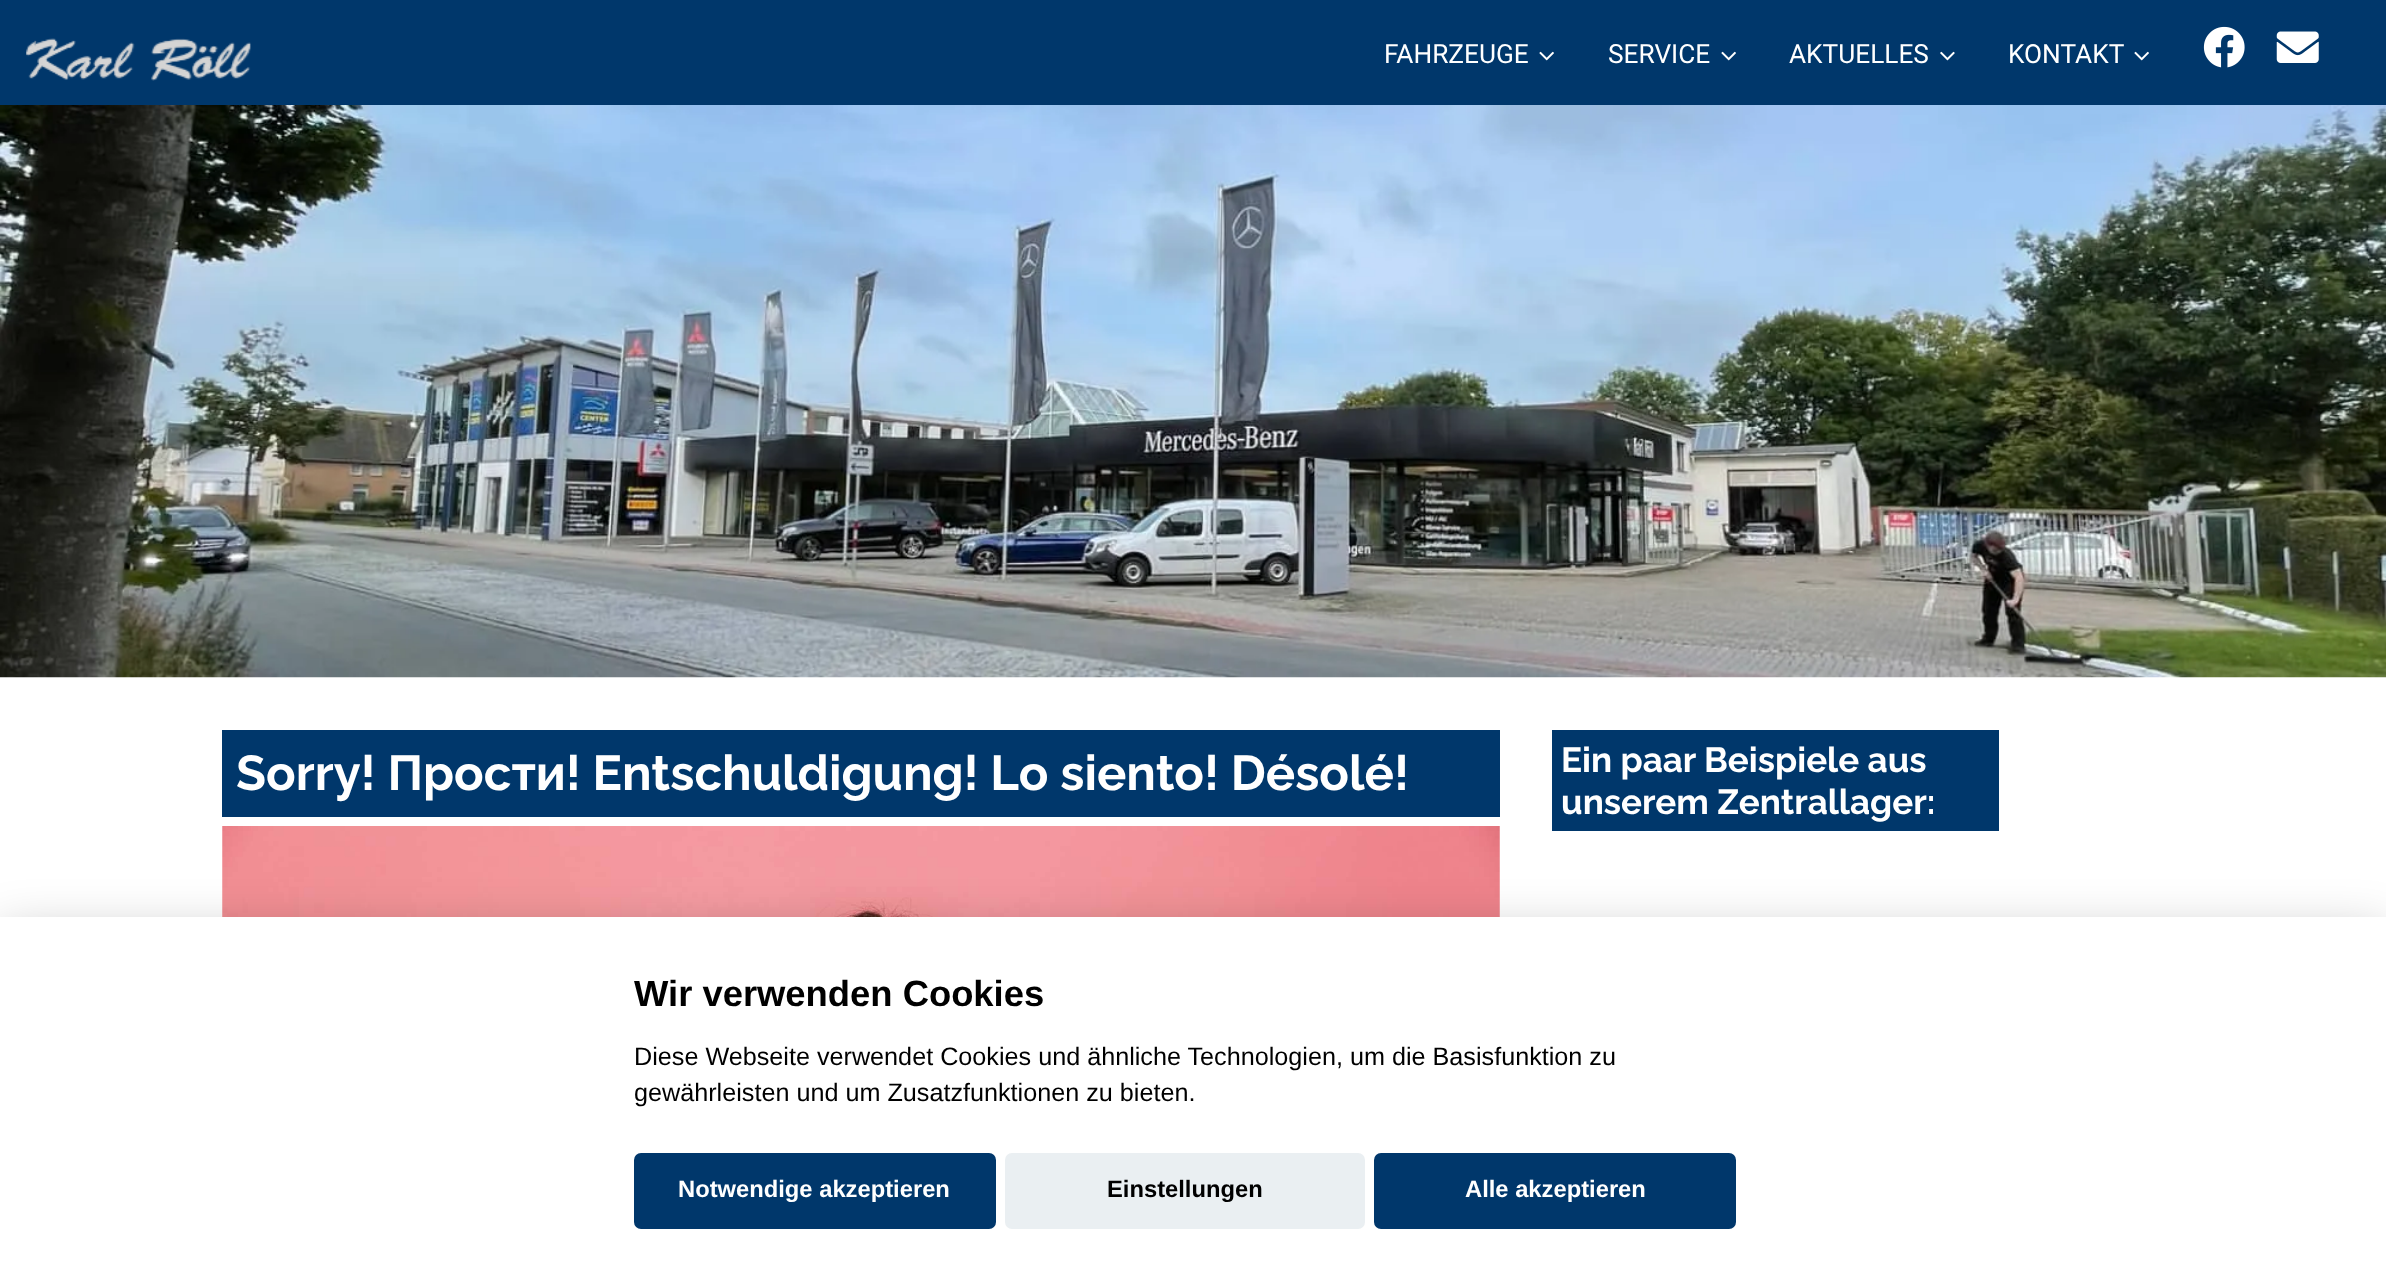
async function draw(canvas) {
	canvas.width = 2386;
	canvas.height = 1283;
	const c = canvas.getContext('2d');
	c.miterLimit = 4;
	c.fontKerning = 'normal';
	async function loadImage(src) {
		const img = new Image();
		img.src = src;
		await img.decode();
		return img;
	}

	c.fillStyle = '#fff';
	c.fillRect(0, 0, 2386, 1283);
	c.fillStyle = '#00376b';
	c.fillRect(0, 0, 2386, 105);
	c.drawImage(await loadImage('img1.png'), 26, 38, 225, 43);
	c.font = '26.25px Roboto';
	c.fillStyle = '#fff';
	c.fillText('FAHRZEUGE', 1384, 63);
	c.drawImage(await loadImage('img2.png'), 1539, 51, 15, 10);
	c.fillText('SERVICE', 1608, 63);
	c.drawImage(await loadImage('img2.png'), 1721, 51, 15, 10);
	c.fillText('AKTUELLES', 1789, 63);
	c.drawImage(await loadImage('img3.png'), 1940, 51, 15, 10);
	c.fillText('KONTAKT', 2008, 63);
	c.drawImage(await loadImage('img2.png'), 2134, 51, 15, 10);
	c.drawImage(await loadImage('img4.png'), 2203, 26, 42, 42);
	c.drawImage(await loadImage('img5.png'), 2276, 31, 43, 32);
	c.drawImage(await loadImage('img6.png'), 0, 105, 2386, 573);
	c.fillStyle = '#00376b';
	c.fillRect(222, 730, 1278, 87);
	c.font = 'bold 49px Raleway';
	c.fillStyle = '#fff';
	c.fillText('Sorry! Прости! Entschuldigung! Lo siento! Désolé!', 236, 790);
	c.drawImage(await loadImage('img7.png'), 222, 826, 1278, 91);
	c.fillStyle = '#00376b';
	c.fillRect(1552, 730, 447, 101);
	c.font = 'bold 35px Raleway';
	c.fillStyle = '#fff';
	c.fillText('Ein paar Beispiele aus', 1561, 772);
	c.fillText('unserem Zentrallager:', 1561, 814);
	c.fillStyle = '#02020347';
	c.filter = 'blur(26px)';
	c.beginPath();
	c.rect(0, 935, 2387, 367);
	c.fill();
	c.filter = 'none';
	c.fillStyle = '#fff';
	c.fillRect(0, 917, 2386, 366);
	c.font = 'bold 36.4px Liberation Sans';
	c.fillStyle = '#000';
	c.fillText('Wir verwenden Cookies', 634, 1006);
	c.font = '25.2px Liberation Sans';
	c.fillText('Diese Webseite verwendet Cookies und ähnliche Technologien, um die Basisfunktion zu', 634, 1065);
	c.fillText('gewährleisten und um Zusatzfunktionen zu bieten.', 634, 1101);
	c.fillStyle = '#00376b';
	c.beginPath();
	c.roundRect(634, 1153, 362, 76, 7);
	c.fill();
	c.font = 'bold 23.75px Liberation Sans';
	c.fillStyle = '#fff';
	c.fillText('Notwendige akzeptieren', 678, 1197);
	c.fillStyle = '#eaeff2';
	c.beginPath();
	c.roundRect(1005, 1153, 360, 76, 7);
	c.fill();
	c.fillStyle = '#000';
	c.fillText('Einstellungen', 1107, 1197);
	c.fillStyle = '#00376b';
	c.beginPath();
	c.roundRect(1374, 1153, 362, 76, 7);
	c.fill();
	c.fillStyle = '#fff';
	c.fillText('Alle akzeptieren', 1465, 1197);
}

draw(document.querySelector('canvas'));
